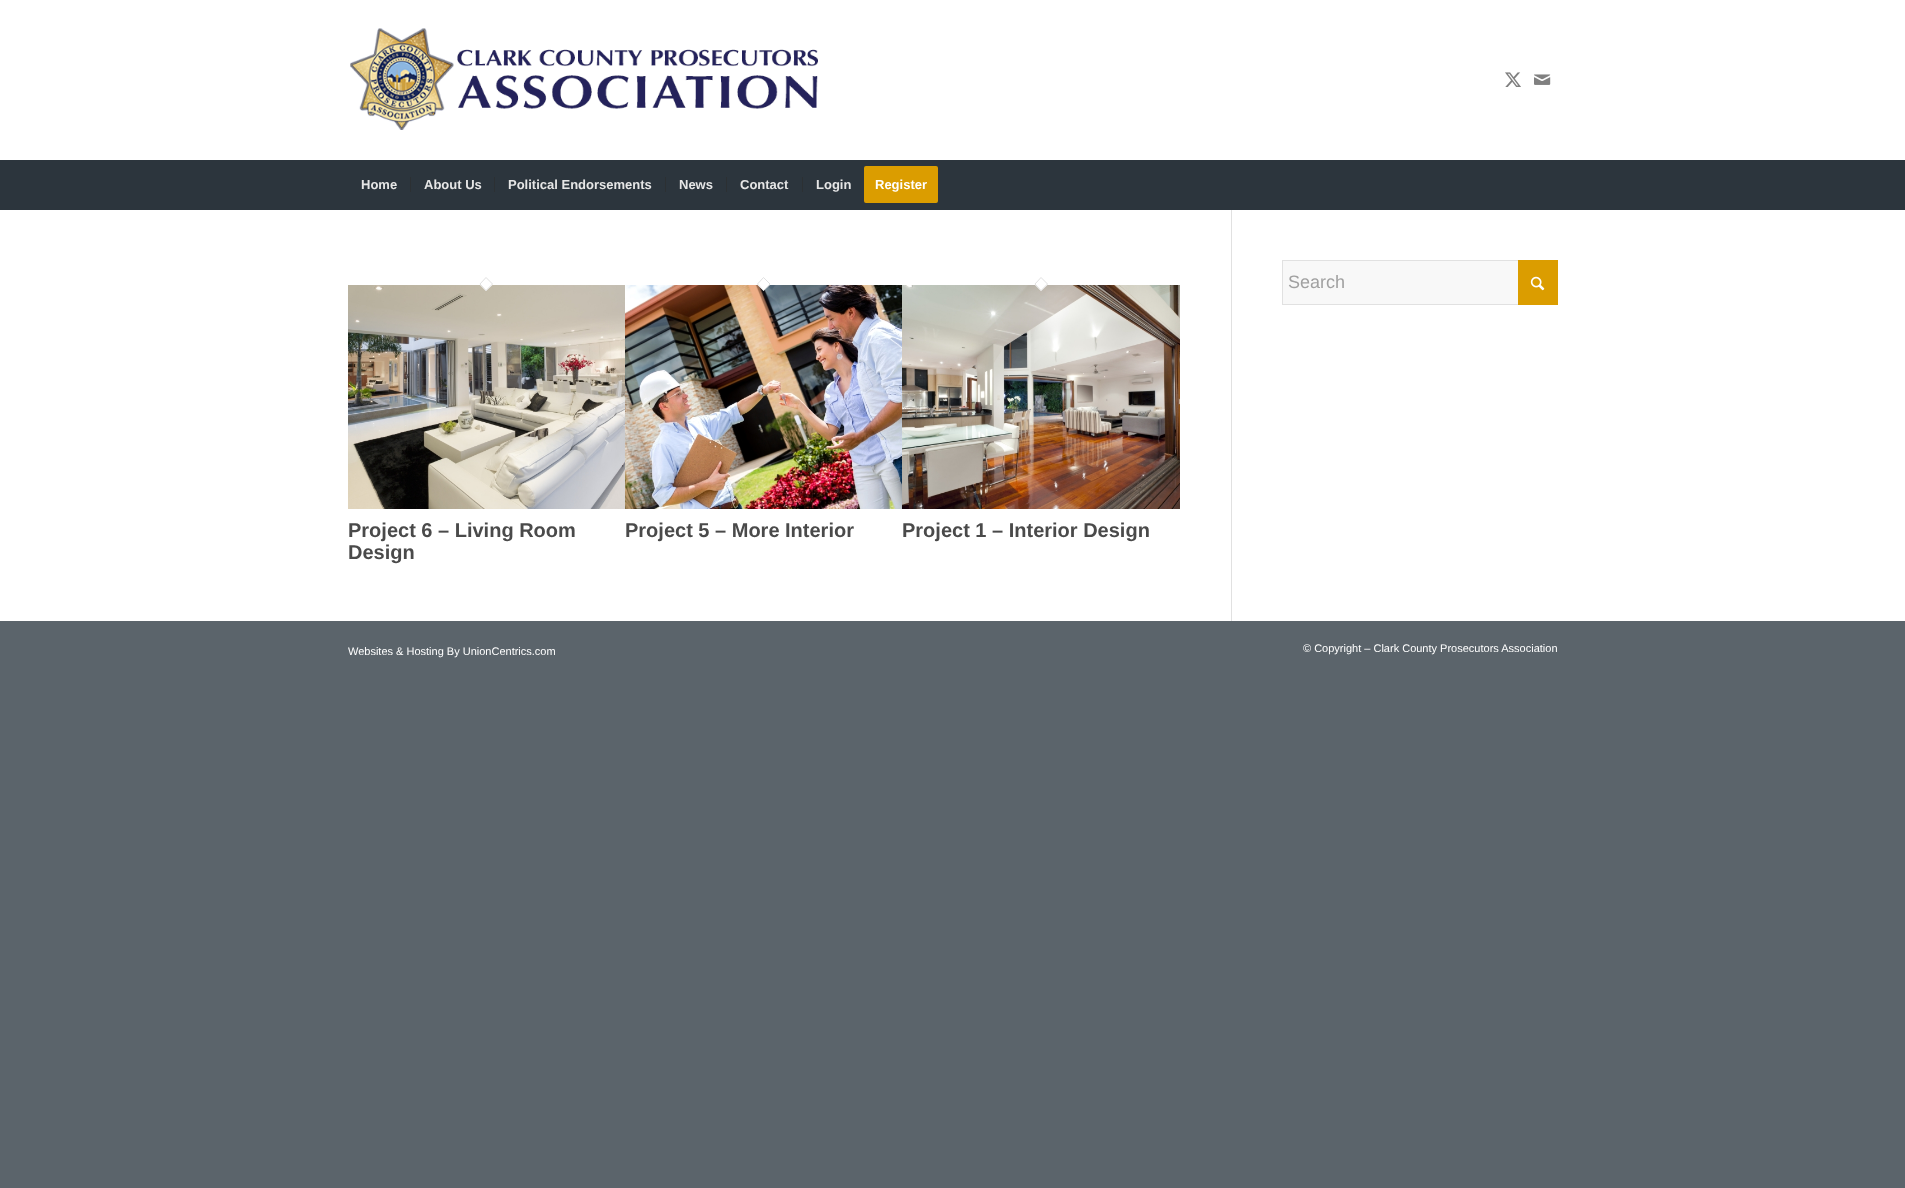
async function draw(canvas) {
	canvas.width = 1905;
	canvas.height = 1188;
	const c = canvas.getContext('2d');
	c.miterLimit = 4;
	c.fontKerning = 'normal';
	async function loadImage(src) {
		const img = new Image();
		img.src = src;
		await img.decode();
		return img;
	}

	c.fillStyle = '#5b646b';
	c.fillRect(0, 0, 1905, 1188);
	c.fillStyle = '#fff';
	c.fillRect(0, 0, 1905, 621);
	c.drawImage(await loadImage('img1.png'), 350, 28, 468, 102);
	c.drawImage(await loadImage('img2.png'), 1505, 72, 16, 15);
	c.drawImage(await loadImage('img3.png'), 1534, 74, 17, 11);
	c.fillStyle = '#2c353d';
	c.fillRect(0, 160, 1905, 50);
	c.font = 'bold 13px Liberation Sans';
	c.fillStyle = '#e6e6e6';
	c.fillText('Home', 361, 189);
	c.fillText('About Us', 424, 189);
	c.fillStyle = '#2c3033';
	c.fillRect(410, 177, 1, 15);
	c.fillStyle = '#e6e6e6';
	c.fillText('Political Endorsements', 508, 189);
	c.fillStyle = '#2c3033';
	c.fillRect(494, 177, 1, 15);
	c.fillStyle = '#e6e6e6';
	c.fillText('News', 679, 189);
	c.fillStyle = '#2c3033';
	c.fillRect(665, 177, 1, 15);
	c.fillStyle = '#e6e6e6';
	c.fillText('Contact', 740, 189);
	c.fillStyle = '#2c3033';
	c.fillRect(726, 177, 1, 15);
	c.fillStyle = '#e6e6e6';
	c.fillText('Login', 816, 189);
	c.fillStyle = '#2c3033';
	c.fillRect(802, 177, 1, 15);
	c.fillStyle = '#db9d00';
	c.beginPath();
	c.roundRect(865, 167, 72, 35, 1);
	c.fill();
	c.strokeStyle = '#db9d00';
	c.lineWidth = 2;
	c.stroke();
	c.fillStyle = '#fff';
	c.fillText('Register', 875, 189);
	c.fillStyle = '#f8f8f8';
	c.fillRect(1283, 261, 235, 43);
	c.strokeStyle = '#e1e1e1';
	c.lineWidth = 1;
	c.strokeRect(1282.5, 260.5, 275, 44);
	c.font = '18px Liberation Sans';
	c.fillStyle = '#a1a1a1';
	c.fillText('Search', 1288, 288);
	c.fillStyle = '#db9d00';
	c.fillRect(1518, 260, 40, 45);
	c.drawImage(await loadImage('img4.png'), 1530, 276, 15, 15);
	c.fillStyle = '#e1e1e1';
	c.fillRect(1231, 210, 1, 411);
	c.drawImage(await loadImage('img5.png'), 348, 285, 277, 224);
	c.fillStyle = '#fff';
	c.beginPath();
	c.moveTo(486, 277);
	c.lineTo(493.5, 284);
	c.lineTo(486, 291);
	c.lineTo(479, 284);
	c.closePath();
	c.fill();
	c.beginPath();
	c.moveTo(486, 277.5);
	c.lineTo(492.5, 284);
	c.lineTo(486, 290.5);
	c.lineTo(480, 284);
	c.closePath();
	c.stroke();
	c.font = 'bold 20px Liberation Sans';
	c.fillStyle = '#4a4a4a';
	c.fillText('Project 6 – Living Room', 348, 537);
	c.fillText('Design', 348, 559);
	c.drawImage(await loadImage('img6.png'), 625, 285, 277, 224);
	c.fillStyle = '#fff';
	c.beginPath();
	c.moveTo(763.5, 277);
	c.lineTo(771, 284);
	c.lineTo(763.5, 291);
	c.lineTo(756.5, 284);
	c.closePath();
	c.fill();
	c.beginPath();
	c.moveTo(763.5, 277.5);
	c.lineTo(770, 284);
	c.lineTo(763.5, 290.5);
	c.lineTo(757.5, 284);
	c.closePath();
	c.stroke();
	c.fillStyle = '#4a4a4a';
	c.fillText('Project 5 – More Interior', 625, 537);
	c.drawImage(await loadImage('img7.png'), 902, 285, 278, 224);
	c.fillStyle = '#fff';
	c.beginPath();
	c.moveTo(1041, 277);
	c.lineTo(1048.5, 284);
	c.lineTo(1041, 291);
	c.lineTo(1034, 284);
	c.closePath();
	c.fill();
	c.beginPath();
	c.moveTo(1041, 277.5);
	c.lineTo(1047.5, 284);
	c.lineTo(1041, 290.5);
	c.lineTo(1035, 284);
	c.closePath();
	c.stroke();
	c.fillStyle = '#4a4a4a';
	c.fillText('Project 1 – Interior Design', 902, 537);
	c.font = '11px Liberation Sans';
	c.fillStyle = '#fff';
	c.fillText('Websites & Hosting By UnionCentrics.com', 348, 655);
	c.fillText('© Copyright – Clark County Prosecutors Association', 1303, 652);
}

draw(document.querySelector('canvas'));
